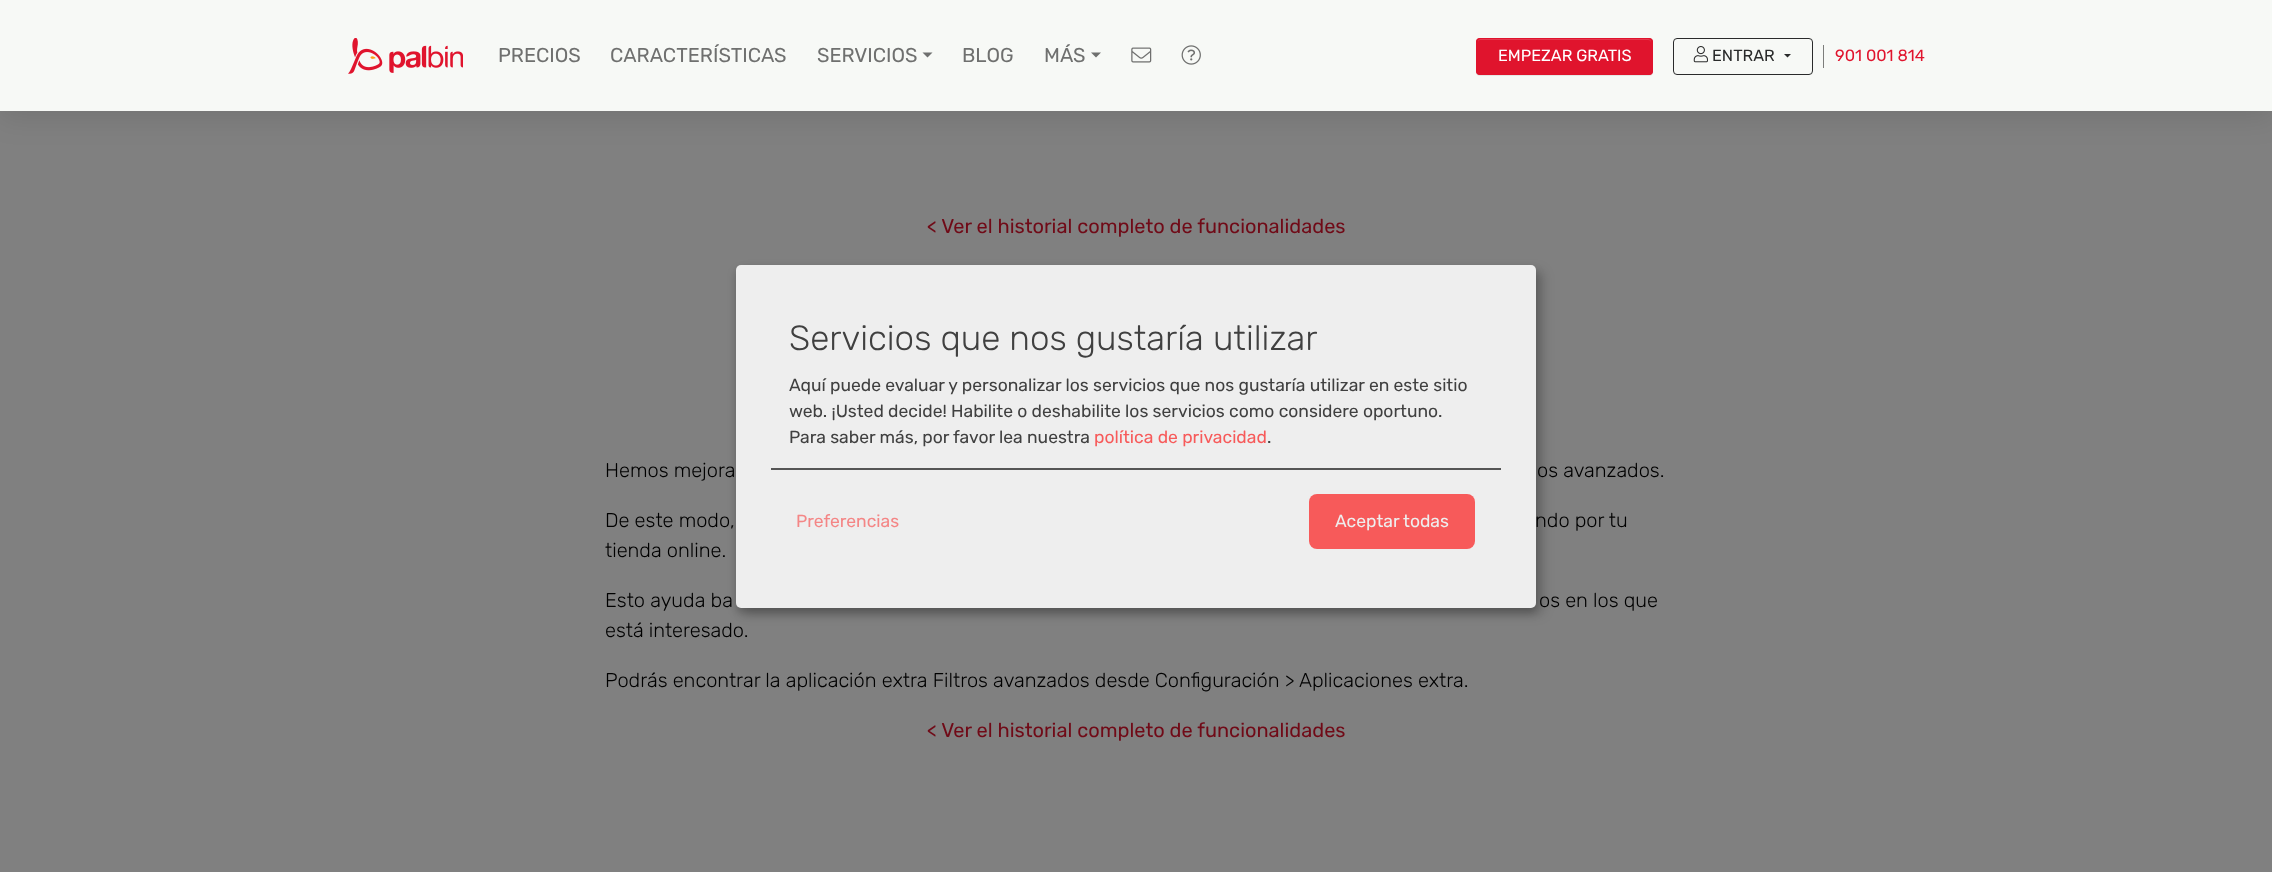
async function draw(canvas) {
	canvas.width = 2272;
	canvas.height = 872;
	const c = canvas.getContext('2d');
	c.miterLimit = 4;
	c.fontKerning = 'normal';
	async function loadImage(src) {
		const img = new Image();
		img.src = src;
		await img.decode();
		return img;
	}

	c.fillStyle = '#808080';
	c.fillRect(0, 0, 2272, 872);
	c.fillStyle = '#0000001a';
	c.filter = 'blur(14.5px)';
	c.beginPath();
	c.rect(0, 6, 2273, 112);
	c.fill();
	c.filter = 'none';
	c.fillStyle = '#f7f9f6';
	c.fillRect(0, 0, 2272, 111);
	c.drawImage(await loadImage('img1.png'), 348, 38, 115, 36);
	c.font = '20px Rubik';
	c.fillStyle = '#6f706f';
	for (const [text, x, y] of [
		['PRECIOS', 498, 62],
		['CARACTERÍSTICAS', 610, 62],
		['SERVICIOS', 817, 62],
	]) {
		c.fillText(text, x, y);
	}
	c.beginPath();
	c.moveTo(922.5, 52.5);
	c.lineTo(932.5, 52.5);
	c.lineTo(927.5, 57.5);
	c.closePath();
	c.fill();
	c.fillText('BLOG', 962, 62);
	c.fillText('MÁS', 1044, 62);
	c.beginPath();
	c.moveTo(1091, 52.5);
	c.lineTo(1101, 52.5);
	c.lineTo(1096, 57.5);
	c.closePath();
	c.fill();
	c.drawImage(await loadImage('img2.png'), 1131, 47, 21, 16);
	c.drawImage(await loadImage('img3.png'), 1181, 45, 20, 20);
	c.fillStyle = '#00000012';
	c.filter = 'blur(0.5px)';
	c.beginPath();
	c.roundRect(1476, 39, 177, 37, 4);
	c.fill();
	c.filter = 'none';
	c.fillStyle = '#e0142d';
	c.beginPath();
	c.roundRect(1476, 38, 177, 37, 4);
	c.fill();
	c.fillStyle = '#e5374d';
	c.beginPath();
	c.moveTo(1480, 40);
	c.lineTo(1648, 40);
	c.bezierCurveTo(1650, 40, 1651, 41, 1651, 43);
	c.lineTo(1651, 42);
	c.bezierCurveTo(1651, 40, 1650, 39, 1648, 39);
	c.lineTo(1480, 39);
	c.bezierCurveTo(1479, 39, 1478, 40, 1478, 42);
	c.lineTo(1478, 43);
	c.bezierCurveTo(1478, 41, 1479, 40, 1480, 40);
	c.closePath();
	c.fill();
	c.beginPath();
	c.roundRect(1476.5, 38.5, 176, 36, 3.5);
	c.strokeStyle = '#e0142d';
	c.stroke();
	c.font = '16.25px Rubik';
	c.fillStyle = '#fff';
	c.fillText('EMPEZAR GRATIS', 1498, 61);
	c.beginPath();
	c.roundRect(1673.5, 38.5, 139, 36, 3.5);
	c.strokeStyle = '#2a2b2b';
	c.stroke();
	c.drawImage(await loadImage('img4.png'), 1693, 46, 15, 17);
	c.fillStyle = '#2a2b2b';
	c.fillText('ENTRAR', 1712, 61);
	c.beginPath();
	c.moveTo(1784, 54);
	c.lineTo(1791, 54);
	c.lineTo(1787.5, 57.5);
	c.closePath();
	c.fill();
	c.fillStyle = '#7c7d7b';
	c.fillRect(1823, 45, 1, 23);
	c.fillStyle = '#e0142d';
	c.fillText('901 001 814', 1835, 61);
	c.font = '20px Rubik';
	c.fillStyle = '#700a17';
	c.fillText('< Ver el historial completo de funcionalidades', 927, 233);
	c.font = '300 20px Rubik';
	c.fillStyle = '#000';
	for (const [text, x, y] of [
		['Hemos mejora', 605, 477],
		['os avanzados.', 1537, 477],
		['De este modo,', 605, 527],
		['ndo por tu', 1535, 527],
		['tienda online.', 605, 557],
		['Esto ayuda ba', 605, 607],
		['os en los que', 1539, 607],
		['está interesado.', 605, 637],
		['Podrás encontrar la aplicación extra Filtros avanzados desde Configuración > Aplicaciones extra.', 605, 687],
	]) {
		c.fillText(text, x, y);
	}
	c.font = '20px Rubik';
	c.fillStyle = '#700a17';
	c.fillText('< Ver el historial completo de funcionalidades', 927, 737);
	c.fillStyle = '#00000030';
	c.filter = 'blur(6px)';
	c.beginPath();
	c.roundRect(743, 271, 800, 343, 5);
	c.fill();
	c.filter = 'none';
	c.fillStyle = '#00000033';
	c.filter = 'blur(4px)';
	c.beginPath();
	c.roundRect(736, 270, 800, 343, 5);
	c.fill();
	c.filter = 'none';
	c.fillStyle = '#eee';
	c.beginPath();
	c.roundRect(736, 265, 800, 343, 5);
	c.fill();
	c.fillStyle = '#555';
	c.fillRect(771, 468, 730, 2);
	c.font = '300 35px Rubik';
	c.fillStyle = '#404040';
	c.fillText('Servicios que nos gustaría utilizar', 789, 350);
	c.font = '17.5px Rubik';
	for (const [text, x, y] of [
		['Aquí puede evaluar y personalizar los servicios que nos gustaría utilizar en este sitio', 789, 391],
		['web. ¡Usted decide! Habilite o deshabilite los servicios como considere oportuno.', 789, 417],
		['Para saber más, por favor lea nuestra', 789, 443],
	]) {
		c.fillText(text, x, y);
	}
	c.fillStyle = '#f75a5a';
	c.fillText('política de privacidad', 1094, 443);
	c.fillStyle = '#404040';
	c.fillText('.', 1267, 443);
	c.fillStyle = '#f48686';
	c.fillText('Preferencias', 796, 527);
	c.fillStyle = '#f75a5a';
	c.beginPath();
	c.roundRect(1309, 494, 166, 55, 8);
	c.fill();
	c.fillStyle = '#eee';
	c.fillText('Aceptar todas', 1335, 527);
}

draw(document.querySelector('canvas'));
